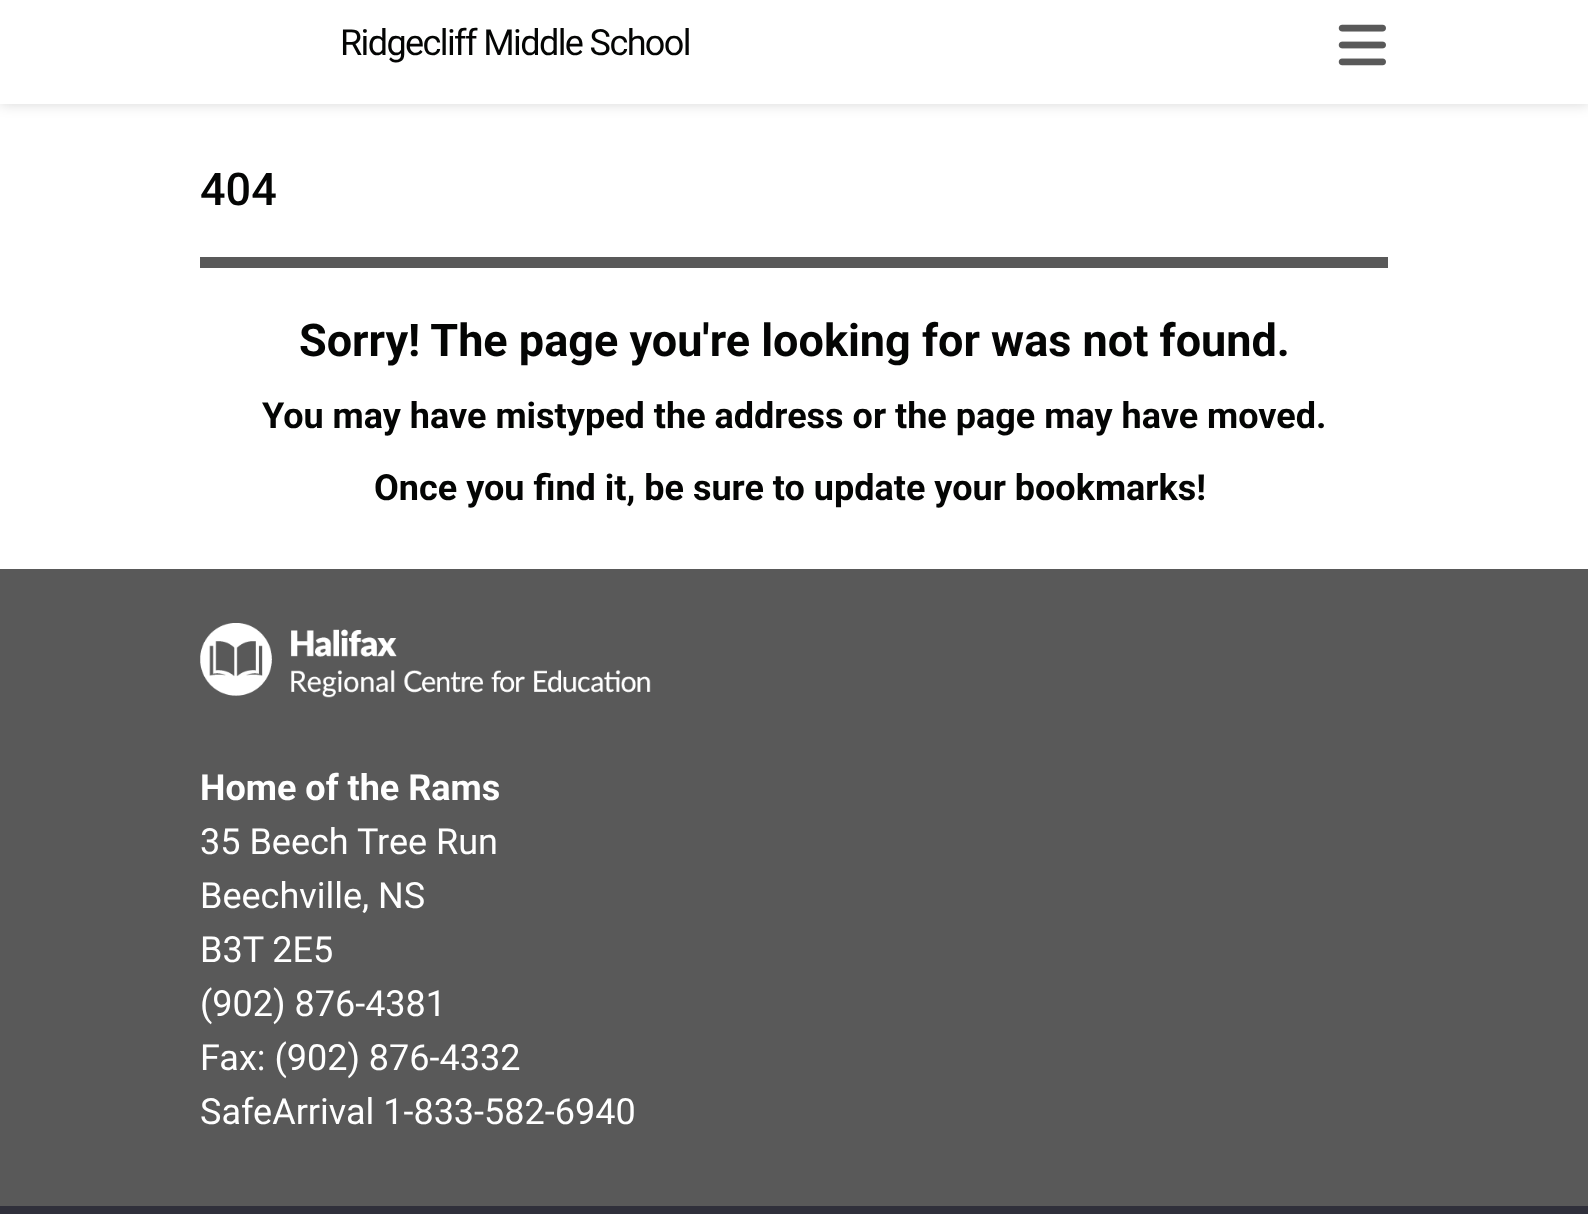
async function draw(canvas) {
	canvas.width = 1588;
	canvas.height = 1214;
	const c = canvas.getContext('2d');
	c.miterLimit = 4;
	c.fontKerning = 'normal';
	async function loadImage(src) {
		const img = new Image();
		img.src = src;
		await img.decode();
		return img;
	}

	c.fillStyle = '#fff';
	c.fillRect(0, 0, 1588, 1214);
	c.save();
	c.beginPath();
	c.moveTo(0, 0);
	c.lineTo(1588, 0);
	c.lineTo(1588, 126);
	c.lineTo(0, 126);
	c.closePath();
	c.moveTo(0, -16);
	c.lineTo(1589, -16);
	c.lineTo(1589, 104);
	c.lineTo(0, 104);
	c.closePath();
	c.clip('evenodd');
	c.fillStyle = '#00000029';
	c.filter = 'blur(7px)';
	c.beginPath();
	c.rect(0, -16, 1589, 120);
	c.fill();
	c.filter = 'none';
	c.restore();
	c.letterSpacing = '-1.6px';
	c.font = '36px Roboto';
	c.fillStyle = '#040504';
	c.fillText('Ridgecliff Middle School', 340, 55);
	c.drawImage(await loadImage('img1.png'), 1338, 24, 48, 42);
	c.fillStyle = '#595959';
	c.fillRect(200, 257, 1188, 11);
	c.letterSpacing = '0px';
	c.font = '500 45px Roboto';
	c.fillStyle = '#040504';
	c.fillText('404', 200, 205);
	c.font = 'bold 45px Roboto';
	c.fillText('Sorry! The page you\'re looking for was not found.', 299, 356);
	c.font = 'bold 36px Roboto';
	c.fillText('You may have mistyped the address or the page may have moved.', 262, 428);
	c.fillText('Once you find it, be sure to update your bookmarks!', 374, 500);
	c.fillStyle = '#595959';
	c.fillRect(0, 569, 1588, 637);
	c.drawImage(await loadImage('img2.png'), 200, 623, 451, 75);
	c.fillStyle = '#fff';
	c.fillText('Home of the Rams', 200, 800);
	c.font = '36px Roboto';
	for (const [text, x, y] of [
		['35 Beech Tree Run', 200, 854],
		['Beechville, NS', 200, 908],
		['B3T 2E5', 200, 962],
		['(902) 876-4381', 200, 1016],
		['Fax: (902) 876-4332', 200, 1070],
		['SafeArrival 1-833-582-6940', 200, 1124],
	]) {
		c.fillText(text, x, y);
	}
	c.fillStyle = '#30303b';
	c.fillRect(0, 1206, 1588, 8);
}

draw(document.querySelector('canvas'));
